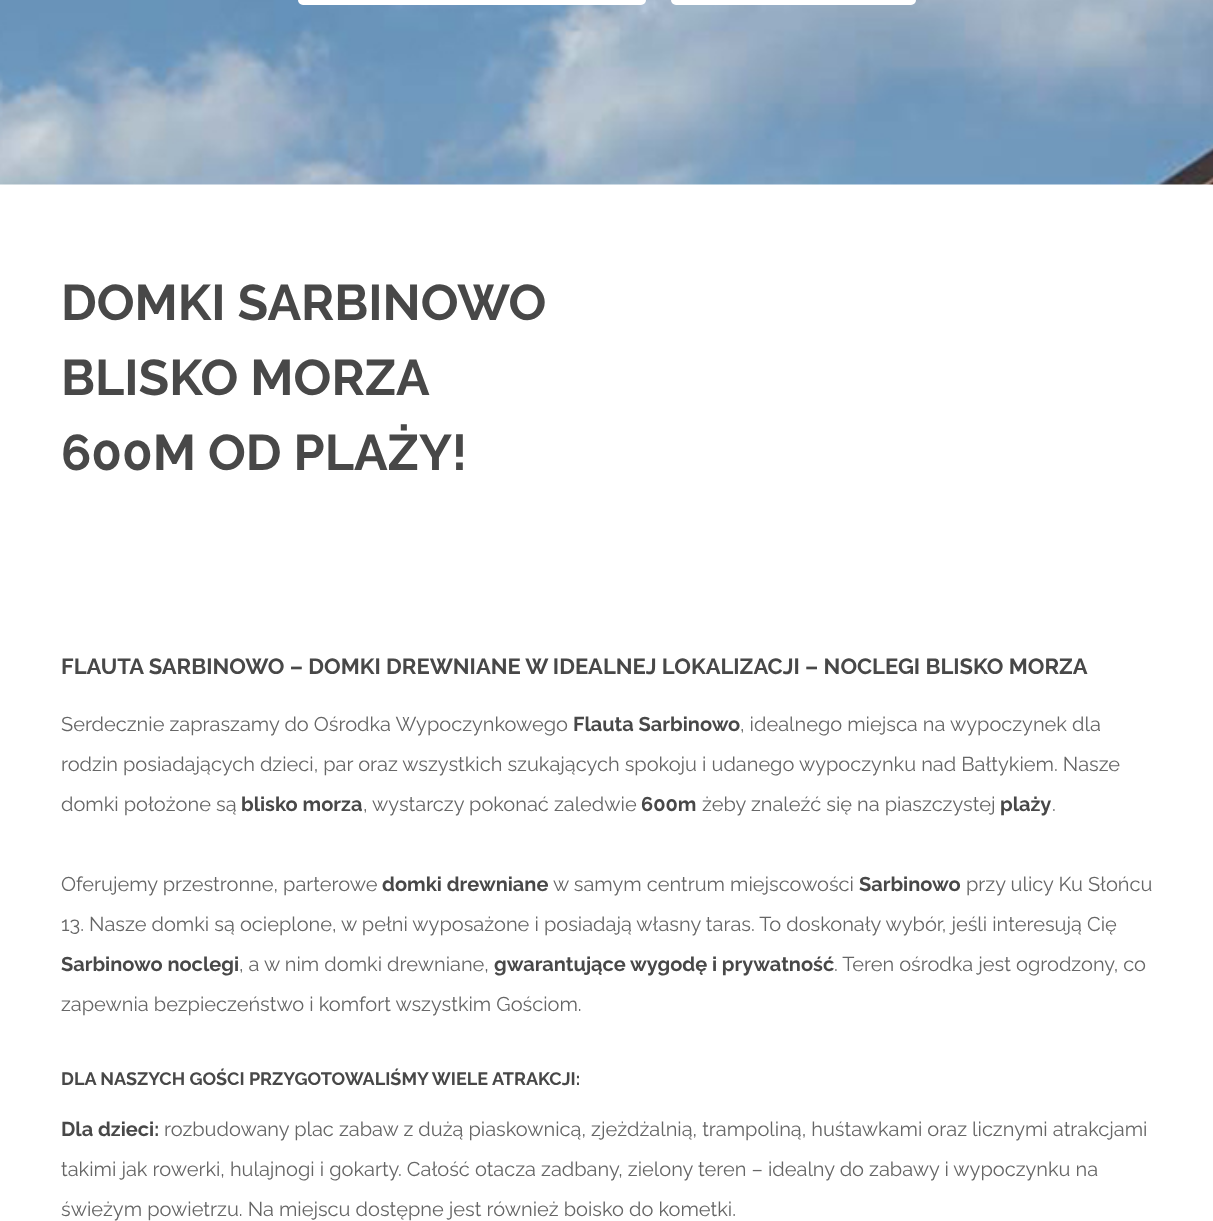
async function draw(canvas) {
	canvas.width = 1213;
	canvas.height = 1221;
	const c = canvas.getContext('2d');
	c.miterLimit = 4;
	c.fontKerning = 'normal';
	async function loadImage(src) {
		const img = new Image();
		img.src = src;
		await img.decode();
		return img;
	}

	c.fillStyle = '#fff';
	c.fillRect(0, 0, 1213, 1221);
	c.drawImage(await loadImage('img1.png'), 0, 0, 1213, 185);
	c.beginPath();
	c.roundRect(301, -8, 342, 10, 2);
	c.strokeStyle = '#fff';
	c.lineWidth = 6;
	c.stroke();
	c.beginPath();
	c.roundRect(674, -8, 239, 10, 2);
	c.stroke();
	c.font = 'bold 50px Raleway';
	c.fillStyle = '#484848';
	for (const [text, x, y] of [
		['DOMKI SARBINOWO', 61, 320],
		['BLISKO MORZA', 61, 395],
		['600M OD PLAŻY!', 61, 470],
	]) {
		c.fillText(text, x, y);
	}
	c.font = 'bold 22px Raleway';
	c.fillText('FLAUTA SARBINOWO – DOMKI DREWNIANE W IDEALNEJ LOKALIZACJI – NOCLEGI BLISKO MORZA', 61, 674);
	c.font = '20px Raleway';
	c.fillStyle = '#666';
	c.fillText('Serdecznie zapraszamy do Ośrodka Wypoczynkowego', 61, 731);
	c.font = 'bold 20px Raleway';
	c.fillStyle = '#484848';
	c.fillText('Flauta Sarbinowo', 573, 731);
	c.font = '20px Raleway';
	c.fillStyle = '#666';
	for (const [text, x, y] of [
		[', idealnego miejsca na wypoczynek dla', 740, 731],
		['rodzin posiadających dzieci, par oraz wszystkich szukających spokoju i udanego wypoczynku nad Bałtykiem. Nasze', 61, 771],
		['domki położone są', 61, 811],
	]) {
		c.fillText(text, x, y);
	}
	c.font = 'bold 20px Raleway';
	c.fillStyle = '#484848';
	c.fillText('blisko morza', 241, 811);
	c.font = '20px Raleway';
	c.fillStyle = '#666';
	c.fillText(', wystarczy pokonać zaledwie', 363, 811);
	c.font = 'bold 20px Raleway';
	c.fillStyle = '#484848';
	c.fillText('600m', 641, 811);
	c.font = '20px Raleway';
	c.fillStyle = '#666';
	c.fillText('żeby znaleźć się na piaszczystej', 702, 811);
	c.font = 'bold 20px Raleway';
	c.fillStyle = '#484848';
	c.fillText('plaży', 1000, 811);
	c.font = '20px Raleway';
	c.fillStyle = '#666';
	c.fillText('.', 1052, 811);
	c.fillText('Oferujemy przestronne, parterowe', 61, 891);
	c.font = 'bold 20px Raleway';
	c.fillStyle = '#484848';
	c.fillText('domki drewniane', 382, 891);
	c.font = '20px Raleway';
	c.fillStyle = '#666';
	c.fillText('w samym centrum miejscowości', 553, 891);
	c.font = 'bold 20px Raleway';
	c.fillStyle = '#484848';
	c.fillText('Sarbinowo', 859, 891);
	c.font = '20px Raleway';
	c.fillStyle = '#666';
	c.fillText('przy ulicy Ku Słońcu', 966, 891);
	c.fillText('13. Nasze domki są ocieplone, w pełni wyposażone i posiadają własny taras. To doskonały wybór, jeśli interesują Cię', 61, 931);
	c.font = 'bold 20px Raleway';
	c.fillStyle = '#484848';
	c.fillText('Sarbinowo noclegi', 61, 971);
	c.font = '20px Raleway';
	c.fillStyle = '#666';
	c.fillText(', a w nim domki drewniane,', 239, 971);
	c.font = 'bold 20px Raleway';
	c.fillStyle = '#484848';
	c.fillText('gwarantujące wygodę i prywatność', 494, 971);
	c.font = '20px Raleway';
	c.fillStyle = '#666';
	c.fillText('. Teren ośrodka jest ogrodzony, co', 834, 971);
	c.fillText('zapewnia bezpieczeństwo i komfort wszystkim Gościom.', 61, 1011);
	c.font = 'bold 18px Raleway';
	c.fillStyle = '#484848';
	c.fillText('DLA NASZYCH GOŚCI PRZYGOTOWALIŚMY WIELE ATRAKCJI:', 61, 1085);
	c.font = 'bold 20px Raleway';
	c.fillText('Dla dzieci:', 61, 1136);
	c.font = '20px Raleway';
	c.fillStyle = '#666';
	for (const [text, x, y] of [
		['rozbudowany plac zabaw z dużą piaskownicą, zjeżdżalnią, trampoliną, huśtawkami oraz licznymi atrakcjami', 164, 1136],
		['takimi jak rowerki, hulajnogi i gokarty. Całość otacza zadbany, zielony teren – idealny do zabawy i wypoczynku na', 61, 1176],
		['świeżym powietrzu. Na miejscu dostępne jest również boisko do kometki.', 61, 1216],
	]) {
		c.fillText(text, x, y);
	}
}

draw(document.querySelector('canvas'));
